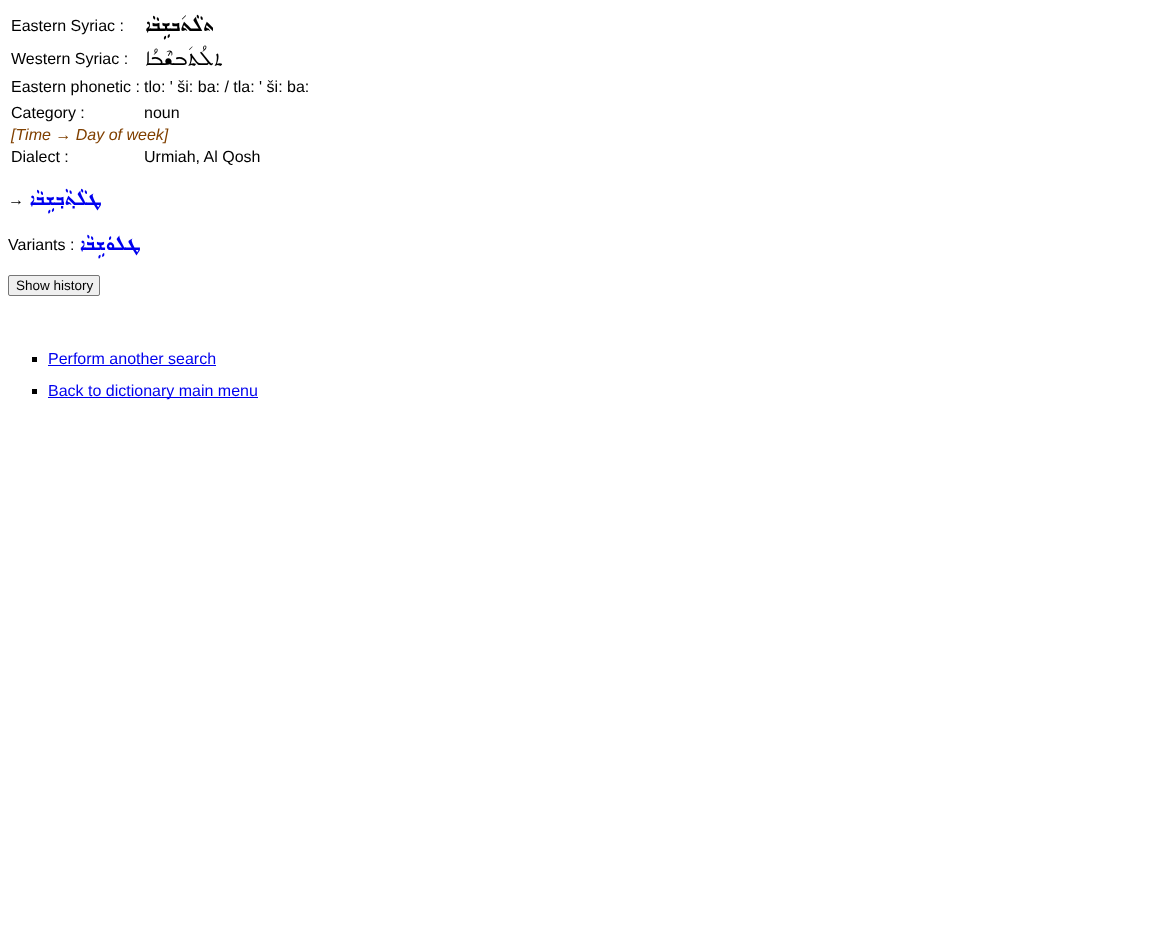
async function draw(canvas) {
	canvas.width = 1154;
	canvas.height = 934;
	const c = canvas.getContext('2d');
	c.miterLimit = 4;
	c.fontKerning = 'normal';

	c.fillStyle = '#fff';
	c.fillRect(0, 0, 1154, 934);
	c.font = '16px Liberation Sans';
	c.fillStyle = '#000';
	c.fillText('Eastern Syriac :', 11, 31);
	c.direction = 'rtl';
	c.font = '25.5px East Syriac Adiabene';
	c.fillText('ܬܠܵܬ݇ܒܫܹܒܵܐ', 213, 31);
	c.direction = 'ltr';
	c.font = '16px Liberation Sans';
	c.fillText('Western Syriac :', 11, 64);
	c.direction = 'rtl';
	c.font = '27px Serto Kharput';
	c.fillText('ܬܠܳܬ݇ܒܫܶܒܳܐ', 222, 65);
	c.direction = 'ltr';
	c.font = '16px Liberation Sans';
	for (const [text, x, y] of [
		['Eastern phonetic :', 11, 92],
		['tlo: \' ši: ba: / tla: \' ši: ba:', 144, 92],
		['Category :', 11, 118],
		['noun', 144, 118],
	]) {
		c.fillText(text, x, y);
	}
	c.font = 'italic 16px Liberation Sans';
	c.fillStyle = '#804000';
	c.fillText('[Time → Day of week]', 11, 140);
	c.font = '16px Liberation Sans';
	c.fillStyle = '#000';
	for (const [text, x, y] of [
		['Dialect :', 11, 162],
		['Urmiah, Al Qosh', 144, 162],
		['→', 8, 205],
	]) {
		c.fillText(text, x, y);
	}
	c.direction = 'rtl';
	c.font = '25.5px East Syriac Adiabene';
	c.fillStyle = '#00e';
	c.fillText('ܛܠܵܬ݂ܵܒ݂ܫܹܒܵܐ', 101, 205);
	c.direction = 'ltr';
	c.font = '16px Liberation Sans';
	c.fillStyle = '#000';
	c.fillText('Variants :', 8, 250);
	c.direction = 'rtl';
	c.font = '25.5px East Syriac Adiabene';
	c.fillStyle = '#00e';
	c.fillText('ܛܠܘܿܫܹܒܵܐ', 140, 250);
	c.fillStyle = '#efefef';
	c.beginPath();
	c.roundRect(8.5, 275.5, 91, 20, 1.5);
	c.fill();
	c.strokeStyle = '#767676';
	c.stroke();
	c.direction = 'ltr';
	c.font = '13.5px Liberation Sans';
	c.fillStyle = '#000';
	c.fillText('Show history', 16, 290);
	c.fillRect(32, 357, 5, 5);
	c.font = '16px Liberation Sans';
	c.fillStyle = '#00e';
	c.fillText('Perform another search', 48, 364);
	for (const [x, y, w, h, color] of [
		[48, 365, 168, 1, '#00e'],
		[32, 389, 5, 5, '#000'],
		[48, 397, 210, 1, '#00e'],
	]) {
		c.fillStyle = color;
		c.fillRect(x, y, w, h);
	}
	c.fillText('Back to dictionary main menu', 48, 396);
}

draw(document.querySelector('canvas'));
